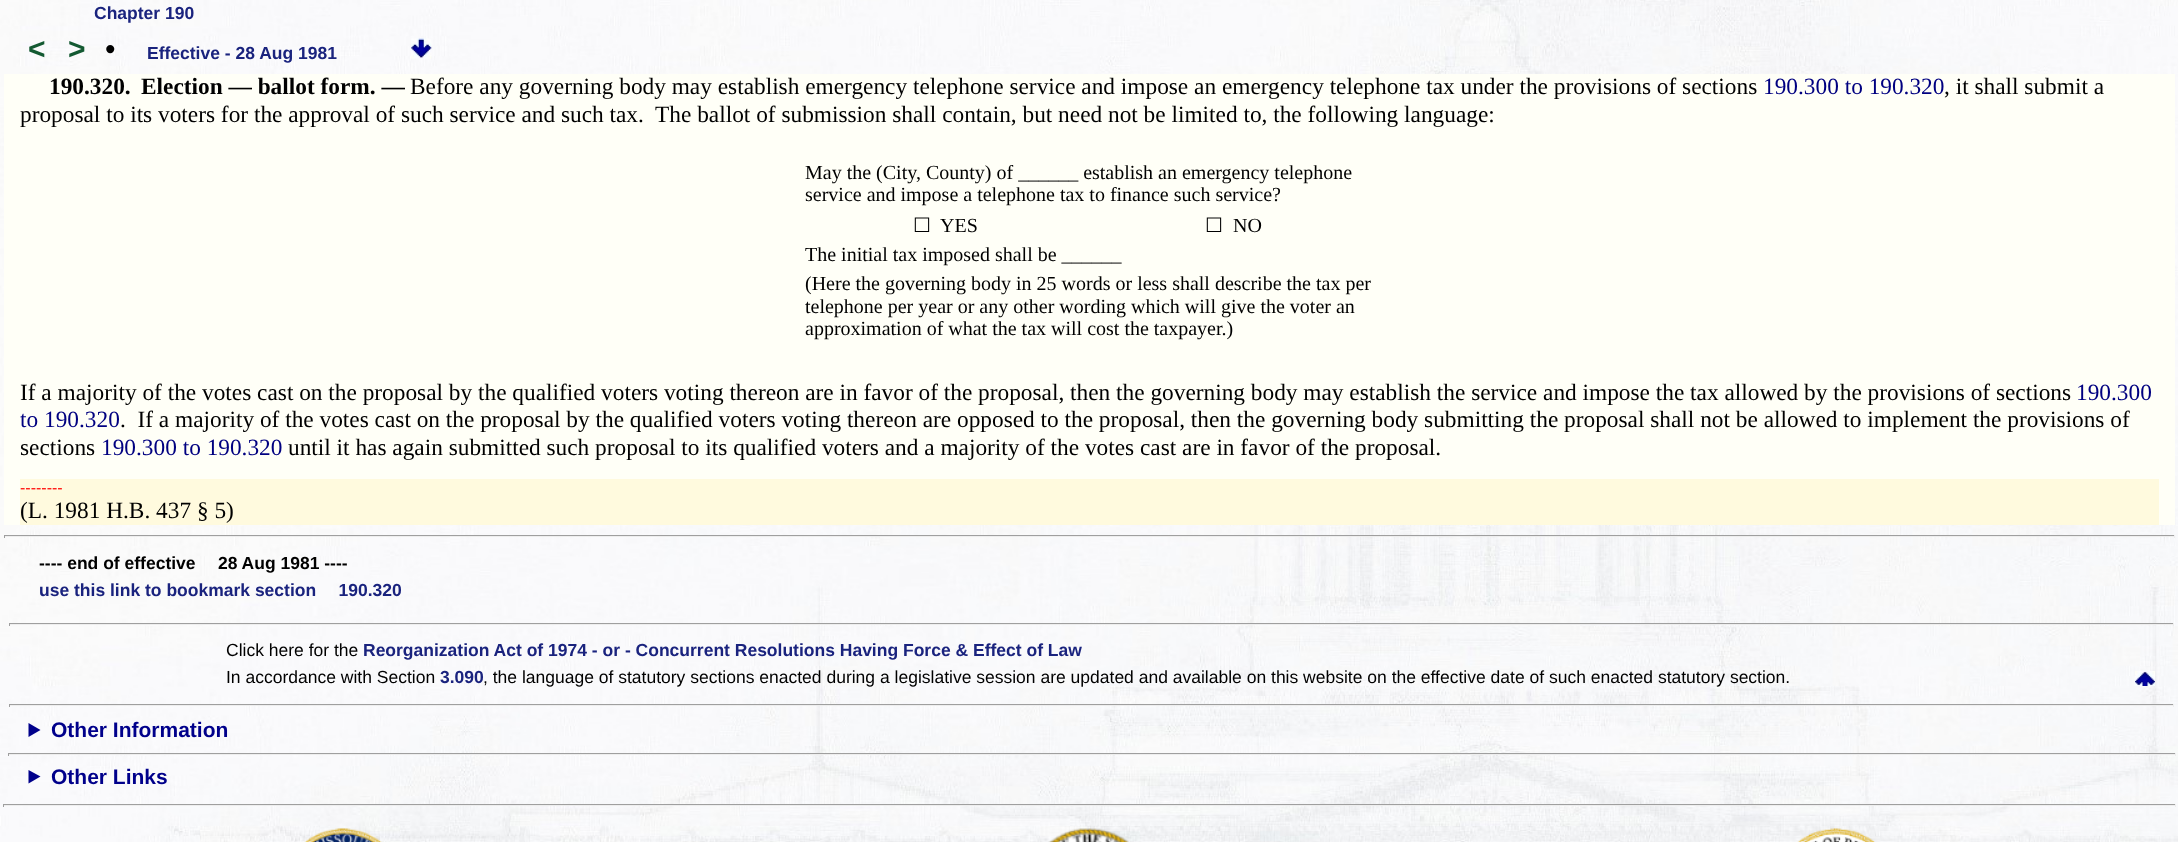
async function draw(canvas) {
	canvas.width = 2178;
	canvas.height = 842;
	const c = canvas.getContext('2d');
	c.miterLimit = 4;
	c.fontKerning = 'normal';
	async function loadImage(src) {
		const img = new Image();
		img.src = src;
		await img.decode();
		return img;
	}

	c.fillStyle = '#fff';
	c.fillRect(0, 0, 2178, 842);
	c.drawImage(await loadImage('img1.png'), 0, 0, 2178, 842);
	c.font = 'bold 17.5px Liberation Sans';
	c.fillStyle = '#1a237e';
	c.fillText('Chapter 190', 94, 19);
	c.font = 'bold 30px Liberation Sans';
	c.fillStyle = '#145a32';
	c.fillText('<', 28, 59);
	c.fillText('>', 68, 59);
	c.font = '30px Liberation Sans';
	c.fillStyle = '#000';
	c.fillText('•', 105, 59);
	c.font = 'bold 17.5px Liberation Sans';
	c.fillStyle = '#1a237e';
	c.fillText('Effective - 28 Aug 1981', 147, 59);
	c.drawImage(await loadImage('img2.png'), 411, 38, 21, 21);
	c.fillStyle = '#fffff7';
	c.fillRect(4, 74, 2171, 451);
	c.font = 'bold 23.33px Liberation Serif';
	c.fillStyle = '#000';
	c.fillText('190.320.', 49, 94);
	c.fillText('Election — ballot form. —', 141, 94);
	c.font = '23.33px Liberation Serif';
	c.fillText('Before any governing body may establish emergency telephone service and impose an emergency telephone tax under the provisions of sections', 410, 94);
	c.fillStyle = '#000080';
	c.fillText('190.300 to 190.320', 1763, 94);
	c.fillStyle = '#000';
	c.fillText(', it shall submit a', 1944, 94);
	c.fillText('proposal to its voters for the approval of such service and such tax.  The ballot of submission shall contain, but need not be limited to, the following language:', 20, 122);
	c.font = '20px Liberation Serif';
	c.fillText('May the (City, County) of ______ establish an emergency telephone', 805, 179);
	c.fillText('service and impose a telephone tax to finance such service?', 805, 201);
	c.font = '20px DejaVu Sans';
	c.fillText('☐', 913, 232);
	c.font = '20px Liberation Serif';
	c.fillText('YES', 940, 232);
	c.font = '20px DejaVu Sans';
	c.fillText('☐', 1205, 232);
	c.font = '20px Liberation Serif';
	for (const [text, x, y] of [
		['NO', 1233, 232],
		['The initial tax imposed shall be ______', 805, 261],
		['(Here the governing body in 25 words or less shall describe the tax per', 805, 290],
		['telephone per year or any other wording which will give the voter an', 805, 313],
		['approximation of what the tax will cost the taxpayer.)', 805, 335],
	]) {
		c.fillText(text, x, y);
	}
	c.font = '23.33px Liberation Serif';
	c.fillText('If a majority of the votes cast on the proposal by the qualified voters voting thereon are in favor of the proposal, then the governing body may establish the service and impose the tax allowed by the provisions of sections', 20, 400);
	c.fillStyle = '#000080';
	c.fillText('190.300', 2076, 400);
	c.fillText('to 190.320', 20, 427);
	c.fillStyle = '#000';
	c.fillText('.  If a majority of the votes cast on the proposal by the qualified voters voting thereon are opposed to the proposal, then the governing body submitting the proposal shall not be allowed to implement the provisions of', 120, 427);
	c.fillText('sections', 20, 455);
	c.fillStyle = '#000080';
	c.fillText('190.300 to 190.320', 101, 455);
	c.fillStyle = '#000';
	c.fillText('until it has again submitted such proposal to its qualified voters and a majority of the votes cast are in favor of the proposal.', 288, 455);
	c.fillStyle = '#fffade';
	c.fillRect(20, 479, 2139, 46);
	c.font = '16px Liberation Sans';
	c.fillStyle = '#f00';
	c.fillText('--------', 20, 493);
	c.font = '23.33px Liberation Serif';
	c.fillStyle = '#000';
	c.fillText('(L. 1981 H.B. 437 § 5)', 20, 518);
	for (const [x, y, w, h, color] of [
		[4, 535, 2171, 1, '#9f9f9f'],
		[2174, 535, 1, 3, '#eee'],
		[4, 536, 2171, 1, '#eee'],
		[4, 535, 1, 3, '#9f9f9f'],
	]) {
		c.fillStyle = color;
		c.fillRect(x, y, w, h);
	}
	c.font = 'bold 17.5px Liberation Sans';
	c.fillStyle = '#000';
	c.fillText('---- end of effective  28 Aug 1981 ----', 39, 569);
	c.fillStyle = '#1a237e';
	c.fillText('use this link to bookmark section  190.320', 39, 596);
	for (const [x, y, w, h, color] of [
		[9, 623, 2165, 1, '#9f9f9f'],
		[2173, 623, 1, 3, '#eee'],
		[9, 624, 2165, 1, '#eee'],
		[9, 623, 1, 3, '#9f9f9f'],
	]) {
		c.fillStyle = color;
		c.fillRect(x, y, w, h);
	}
	c.font = '17.5px Liberation Sans';
	c.fillStyle = '#000';
	c.fillText('Click here for the', 226, 656);
	c.font = 'bold 17.5px Liberation Sans';
	c.fillStyle = '#1a237e';
	c.fillText('Reorganization Act of 1974 - or - Concurrent Resolutions Having Force & Effect of Law', 363, 656);
	c.font = '17.5px Liberation Sans';
	c.fillStyle = '#000';
	c.fillText('In accordance with Section', 226, 683);
	c.font = 'bold 17.5px Liberation Sans';
	c.fillStyle = '#1a237e';
	c.fillText('3.090', 440, 683);
	c.font = '17.5px Liberation Sans';
	c.fillStyle = '#000';
	c.fillText(', the language of statutory sections enacted during a legislative session are updated and available on this website on the effective date of such enacted statutory section.', 483, 683);
	c.drawImage(await loadImage('img3.png'), 2135, 671, 20, 15);
	for (const [x, y, w, h, color] of [
		[9, 704, 2165, 1, '#9f9f9f'],
		[2173, 704, 1, 3, '#eee'],
		[9, 705, 2165, 1, '#eee'],
		[9, 704, 1, 3, '#9f9f9f'],
	]) {
		c.fillStyle = color;
		c.fillRect(x, y, w, h);
	}
	c.fillStyle = '#00008b';
	c.beginPath();
	c.moveTo(28.5, 723);
	c.lineTo(40.5, 730);
	c.lineTo(28.5, 737);
	c.closePath();
	c.fill();
	c.font = 'bold 21px Liberation Sans';
	c.fillText('Other Information', 51, 737);
	for (const [x, y, w, h, color] of [
		[8, 753, 2168, 1, '#9f9f9f'],
		[2175, 753, 1, 3, '#eee'],
		[8, 754, 2168, 1, '#eee'],
		[8, 753, 1, 3, '#9f9f9f'],
	]) {
		c.fillStyle = color;
		c.fillRect(x, y, w, h);
	}
	c.fillStyle = '#00008b';
	c.beginPath();
	c.moveTo(28.5, 770);
	c.lineTo(40.5, 776.5);
	c.lineTo(28.5, 783.5);
	c.closePath();
	c.fill();
	c.fillText('Other Links', 51, 784);
	for (const [x, y, w, h, color] of [
		[3, 804, 2173, 1, '#9f9f9f'],
		[2175, 804, 1, 3, '#eee'],
		[3, 805, 2173, 1, '#eee'],
		[3, 804, 1, 3, '#9f9f9f'],
	]) {
		c.fillStyle = color;
		c.fillRect(x, y, w, h);
	}
	c.drawImage(await loadImage('img4.png'), 304, 828, 78, 14);
	c.drawImage(await loadImage('img5.png'), 1048, 828, 81, 14);
	c.drawImage(await loadImage('img6.png'), 1797, 828, 78, 14);
}

draw(document.querySelector('canvas'));
